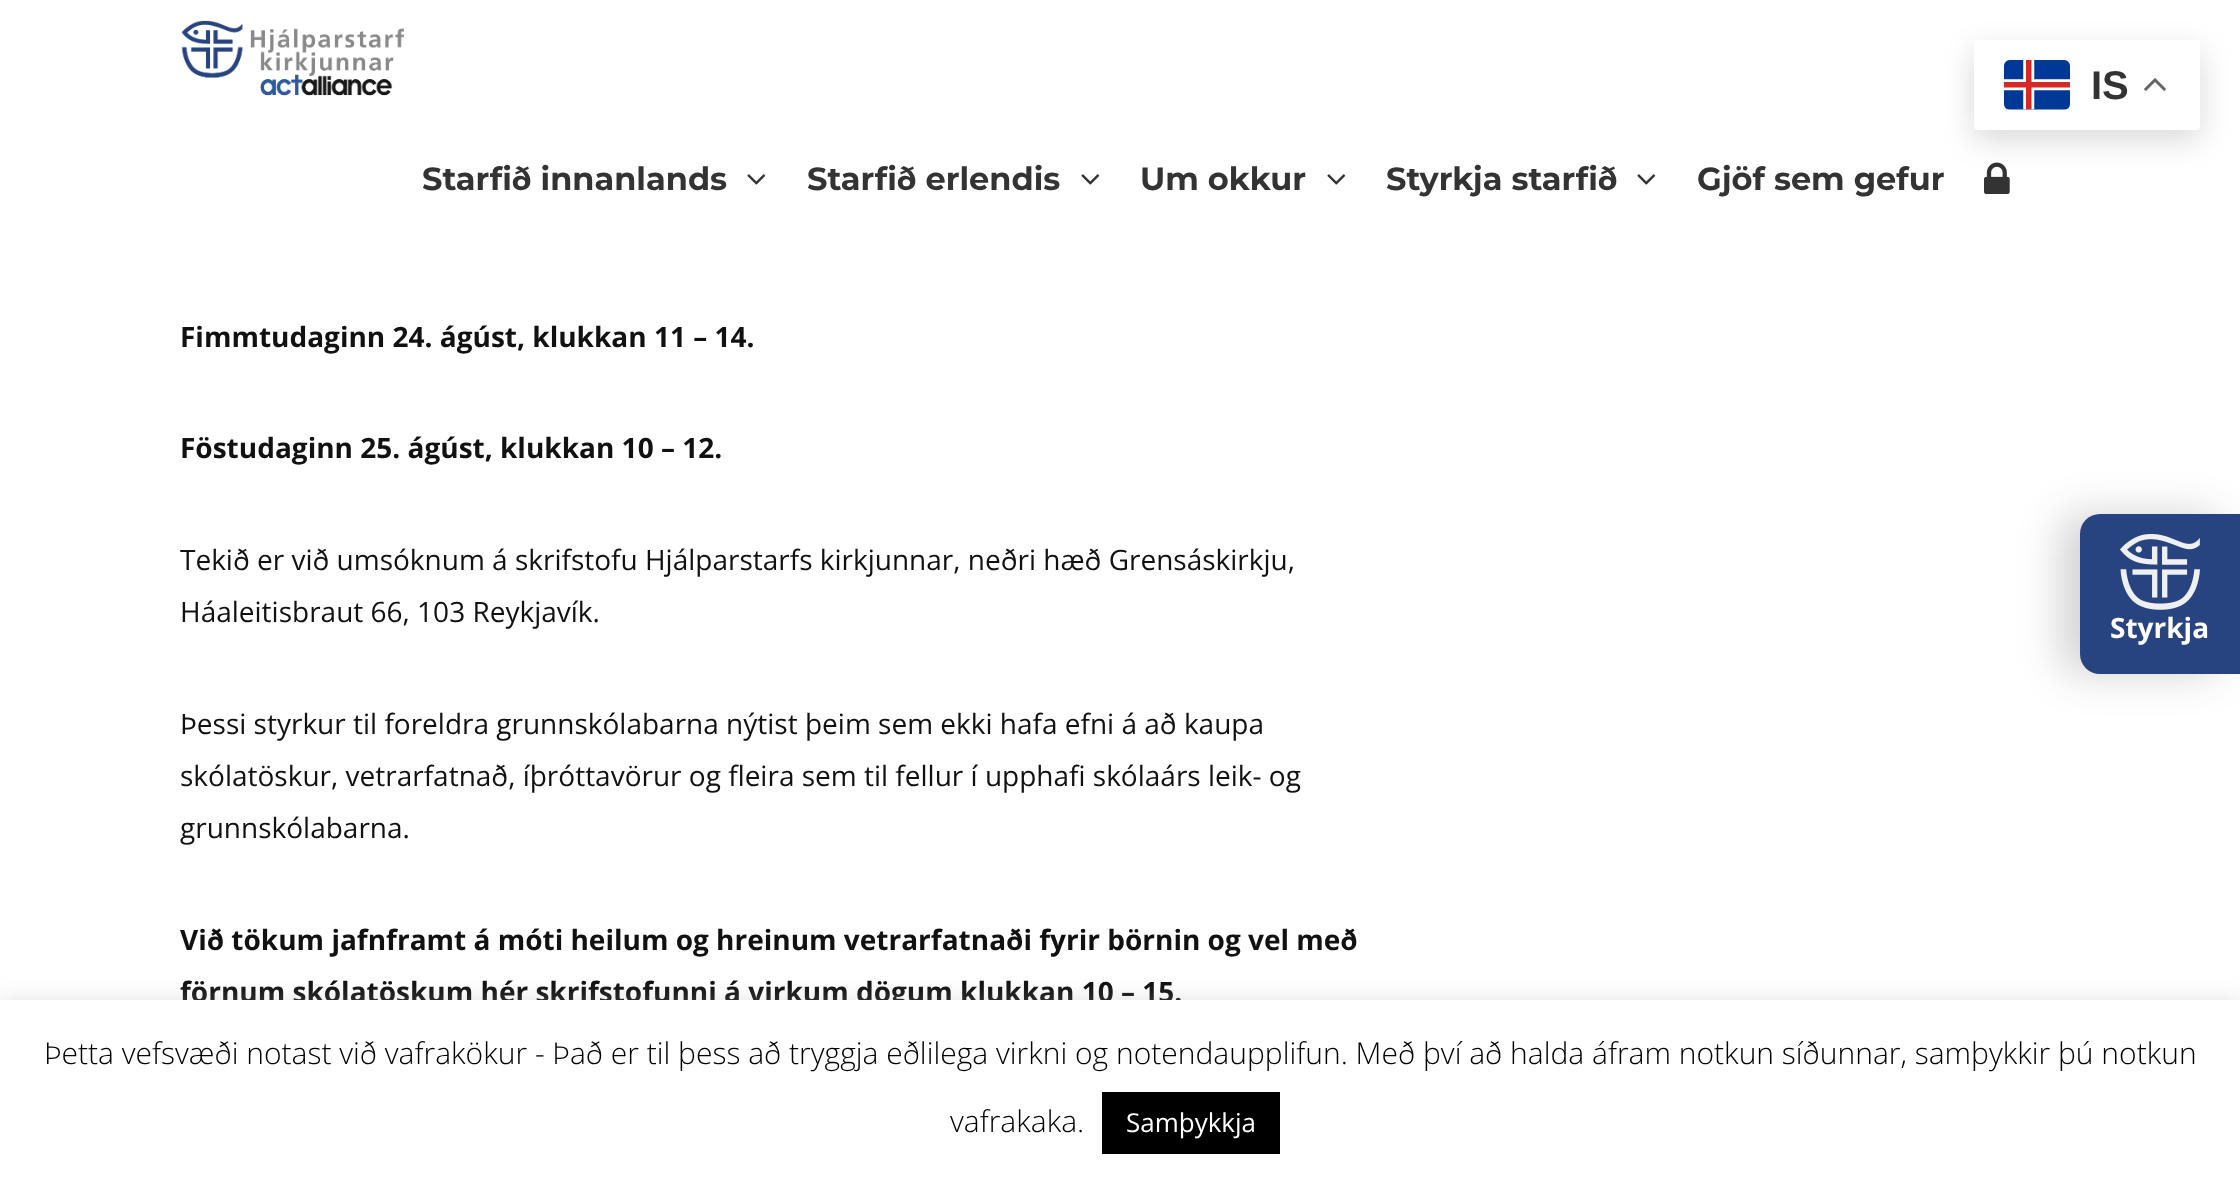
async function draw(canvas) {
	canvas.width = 2240;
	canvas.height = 1187;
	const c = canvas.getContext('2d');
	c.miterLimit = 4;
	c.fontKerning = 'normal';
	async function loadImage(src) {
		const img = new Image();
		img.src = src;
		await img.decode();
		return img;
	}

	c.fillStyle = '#fff';
	c.fillRect(0, 0, 2240, 1187);
	c.drawImage(await loadImage('img5.png'), 1984, 162, 26, 32);
	c.fillStyle = '#00000026';
	c.filter = 'blur(15px)';
	c.beginPath();
	c.roundRect(1974, 50, 226, 90, 4);
	c.fill();
	c.filter = 'none';
	c.fillStyle = '#fff';
	c.beginPath();
	c.roundRect(1974, 40, 226, 90, 4);
	c.fill();
	c.drawImage(await loadImage('img1.png'), 2004, 60, 66, 50);
	c.font = 'bold 40px Liberation Sans';
	c.fillStyle = '#333';
	c.fillText('IS', 2091, 99);
	c.drawImage(await loadImage('img2.png'), 2144, 78, 22, 13);
	c.drawImage(await loadImage('img3.png'), 181, 20, 223, 76);
	c.font = 'bold 32px Montserrat';
	c.fillText('Starfið innanlands', 422, 190);
	c.drawImage(await loadImage('img4.png'), 747, 174, 19, 11);
	c.fillText('Starfið erlendis', 807, 190);
	c.drawImage(await loadImage('img4.png'), 1081, 174, 19, 11);
	c.fillText('Um okkur', 1140, 190);
	c.drawImage(await loadImage('img4.png'), 1327, 174, 19, 11);
	c.fillText('Styrkja starfið', 1386, 190);
	c.drawImage(await loadImage('img4.png'), 1637, 174, 19, 11);
	c.fillText('Gjöf sem gefur', 1697, 190);
	c.font = 'bold 28px Open Sans';
	c.fillStyle = '#111';
	c.fillText('Fimmtudaginn 24. ágúst, klukkan 11 – 14.', 180, 347);
	c.fillText('Föstudaginn 25. ágúst, klukkan 10 – 12.', 180, 458);
	c.font = '28px Open Sans';
	for (const [text, x, y] of [
		['Tekið er við umsóknum á skrifstofu Hjálparstarfs kirkjunnar, neðri hæð Grensáskirkju,', 180, 570],
		['Háaleitisbraut 66, 103 Reykjavík.', 180, 622],
		['Þessi styrkur til foreldra grunnskólabarna nýtist þeim sem ekki hafa efni á að kaupa', 180, 734],
		['skólatöskur, vetrarfatnað, íþróttavörur og fleira sem til fellur í upphafi skólaárs leik- og', 180, 786],
		['grunnskólabarna.', 180, 838],
	]) {
		c.fillText(text, x, y);
	}
	c.font = 'bold 28px Open Sans';
	c.fillText('Við tökum jafnframt á móti heilum og hreinum vetrarfatnaði fyrir börnin og vel með', 180, 950);
	c.fillText('förnum skólatöskum hér skrifstofunni á virkum dögum klukkan 10 – 15.', 180, 1002);
	c.fillStyle = '#23232333';
	c.filter = 'blur(20px)';
	c.beginPath();
	c.roundRect(2060, 514, 160, 160, 20);
	c.fill();
	c.filter = 'none';
	c.fillStyle = '#284480';
	c.beginPath();
	c.roundRect(2080, 514, 160, 160, [20, 0, 0, 20]);
	c.fill();
	c.drawImage(await loadImage('img6.png'), 2120, 534, 80, 76);
	c.fillStyle = '#fff';
	c.fillText('Styrkja', 2110, 638);
	c.fillStyle = '#acabab4d';
	c.filter = 'blur(10px)';
	c.beginPath();
	c.rect(0, 998, 2240, 188);
	c.fill();
	c.filter = 'none';
	c.fillStyle = '#fff';
	c.fillRect(0, 1000, 2240, 187);
	c.font = '300 30px Open Sans';
	c.fillStyle = '#000';
	c.fillText('Þetta vefsvæði notast við vafrakökur - Það er til þess að tryggja eðlilega virkni og notendaupplifun. Með því að halda áfram notkun síðunnar, samþykkir þú notkun', 44, 1064);
	c.fillText('vafrakaka.', 950, 1132);
	c.fillRect(1102, 1092, 178, 62);
	c.font = '26px Open Sans';
	c.fillStyle = '#fff';
	c.fillText('Samþykkja', 1126, 1132);
}

draw(document.querySelector('canvas'));
